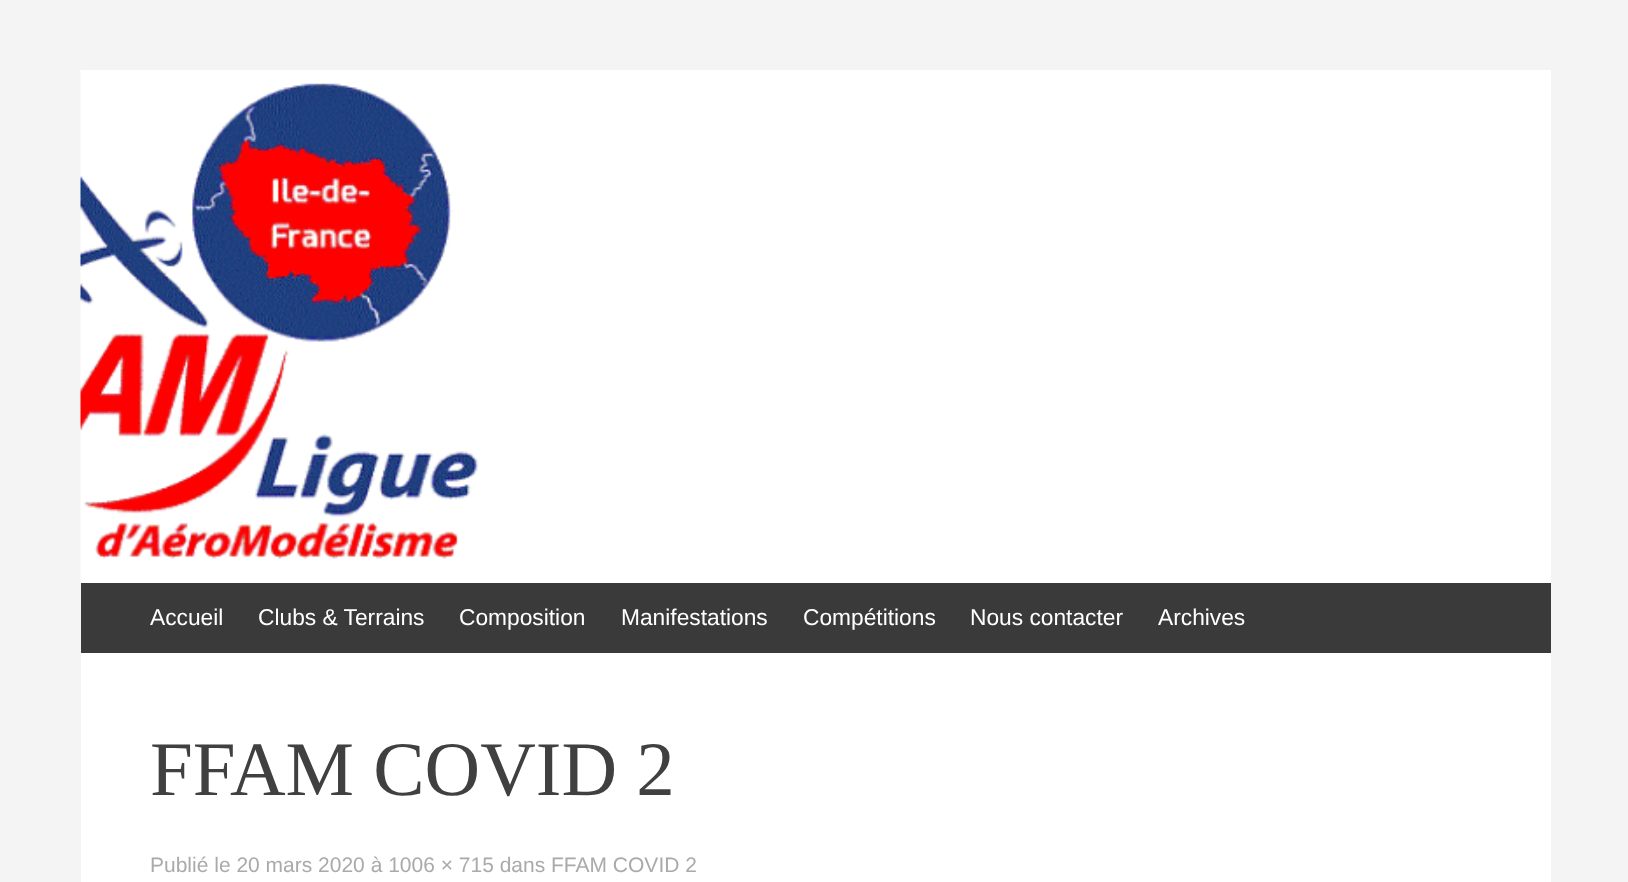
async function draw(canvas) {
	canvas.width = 1628;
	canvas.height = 882;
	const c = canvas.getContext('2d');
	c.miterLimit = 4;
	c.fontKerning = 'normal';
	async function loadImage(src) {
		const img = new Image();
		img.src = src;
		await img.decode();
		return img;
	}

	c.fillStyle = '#f4f4f4';
	c.fillRect(0, 0, 1628, 882);
	c.fillStyle = '#fff';
	c.fillRect(81, 70, 1470, 812);
	c.drawImage(await loadImage('img1.png'), 80, 70, 399, 513);
	c.fillStyle = '#3a3a3a';
	c.fillRect(81, 583, 1470, 70);
	c.font = '22.75px Liberation Sans';
	c.fillStyle = '#fff';
	for (const [text, x, y] of [
		['Accueil', 150, 625],
		['Clubs & Terrains', 258, 625],
		['Composition', 459, 625],
		['Manifestations', 621, 625],
		['Compétitions', 803, 625],
		['Nous contacter', 970, 625],
		['Archives', 1158, 625],
	]) {
		c.fillText(text, x, y);
	}
	c.font = '77px Liberation Serif';
	c.fillStyle = '#404040';
	c.fillText('FFAM COVID 2', 150, 795);
	c.font = '21px Liberation Sans';
	c.fillStyle = '#aaa';
	c.fillText('Publié le 20 mars 2020 à 1006 × 715 dans FFAM COVID 2', 150, 872);
}

draw(document.querySelector('canvas'));
